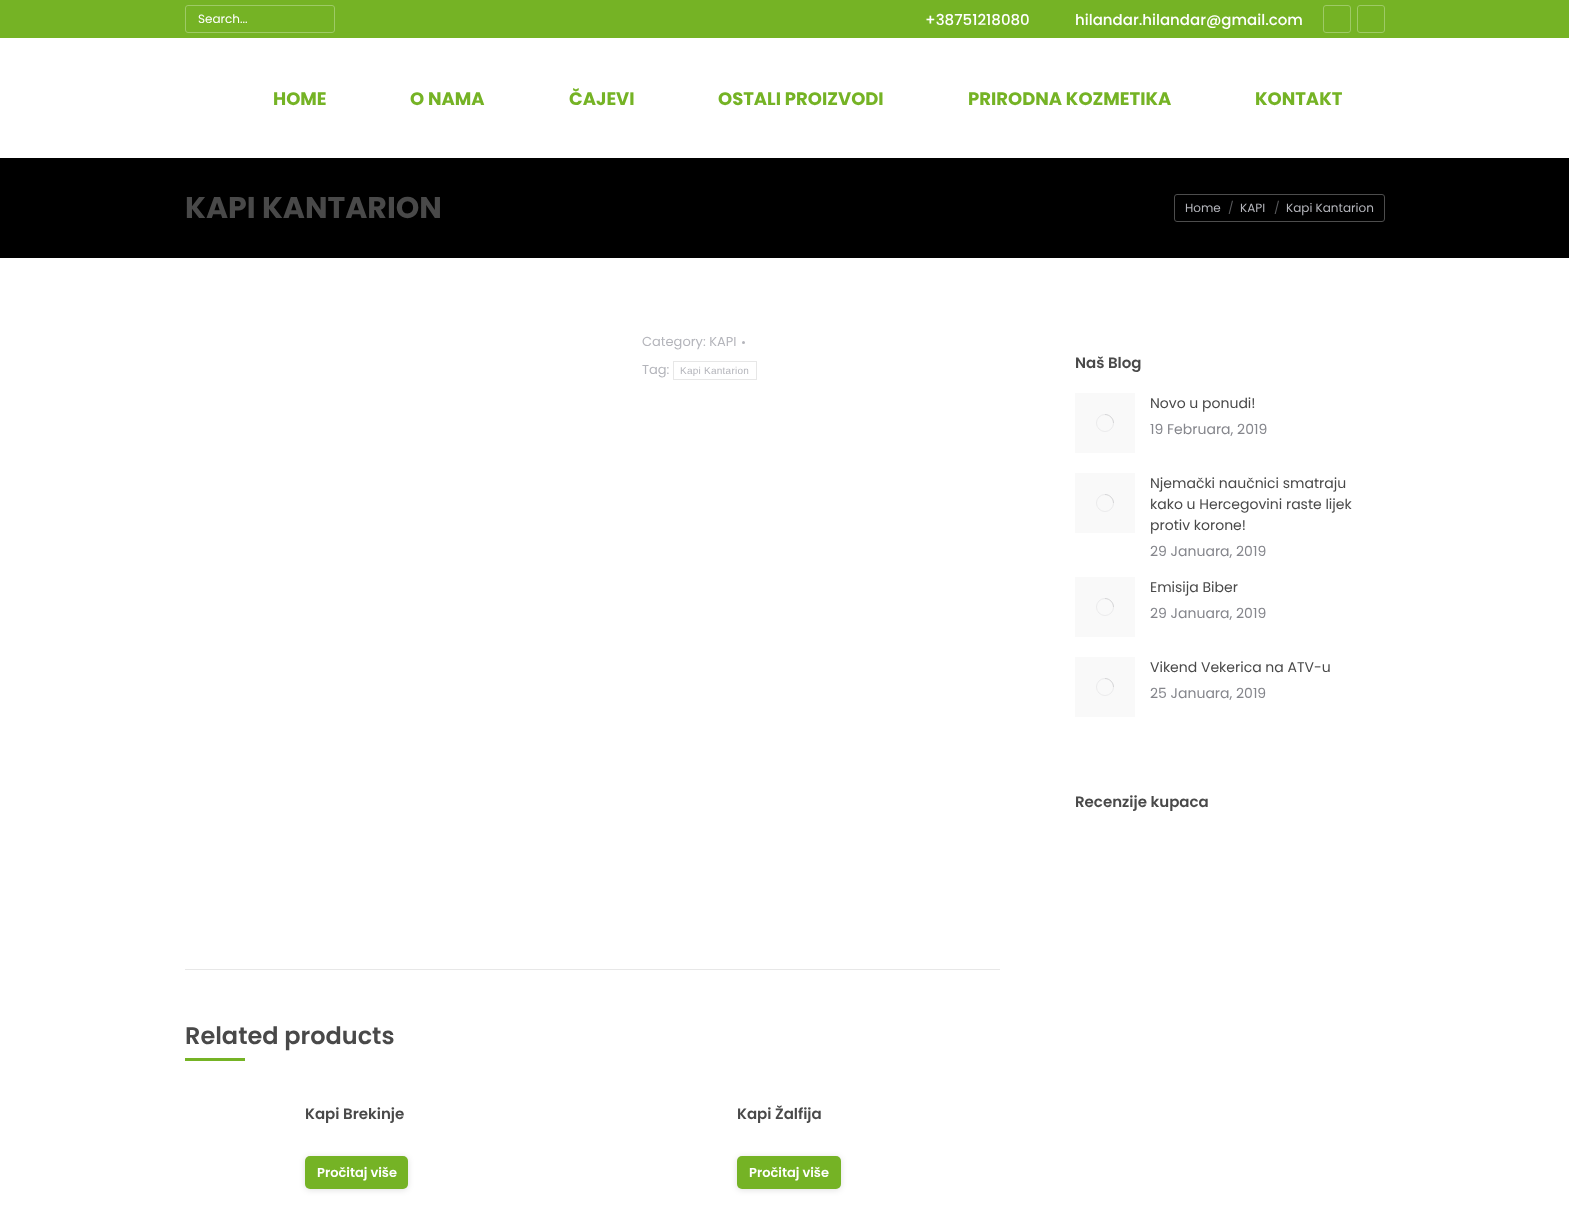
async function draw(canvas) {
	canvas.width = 1569;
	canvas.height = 1211;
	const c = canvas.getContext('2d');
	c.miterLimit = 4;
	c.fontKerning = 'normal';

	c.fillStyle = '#fff';
	c.fillRect(0, 0, 1569, 1211);
	c.fillStyle = '#75b325';
	c.fillRect(0, 0, 1569, 38);
	c.beginPath();
	c.roundRect(185.5, 5.5, 149, 27, 2.5);
	c.strokeStyle = '#9eca66';
	c.stroke();
	c.font = '12px Poppins';
	c.fillStyle = '#fff';
	c.fillText('Search...', 198, 23);
	c.font = '500 15px Poppins';
	c.fillText('+38751218080', 925, 25);
	c.fillText('hilandar.hilandar@gmail.com', 1075, 25);
	c.beginPath();
	c.roundRect(1323.5, 5.5, 27, 27, 2.5);
	c.stroke();
	c.beginPath();
	c.roundRect(1357.5, 5.5, 27, 27, 2.5);
	c.stroke();
	c.font = 'bold 18px Poppins';
	c.fillStyle = '#75b325';
	for (const [text, x, y] of [
		['HOME', 273, 105],
		['O NAMA', 410, 105],
		['ČAJEVI', 569, 105],
		['OSTALI PROIZVODI', 718, 105],
		['PRIRODNA KOZMETIKA', 968, 105],
		['KONTAKT', 1255, 105],
	]) {
		c.fillText(text, x, y);
	}
	c.fillStyle = '#000';
	c.fillRect(0, 158, 1569, 100);
	c.font = 'bold 30px Poppins';
	c.fillStyle = '#494949';
	c.fillText('KAPI KANTARION', 185, 218);
	c.beginPath();
	c.roundRect(1174.5, 194.5, 210, 27, 2.5);
	c.strokeStyle = '#4d4d4d';
	c.stroke();
	c.font = '12px Poppins';
	c.fillStyle = '#b4b5bb';
	c.fillText('Home', 1185, 212);
	c.fillStyle = '#5a5b5e';
	c.fillText('/', 1228, 212);
	c.fillStyle = '#b4b5bb';
	c.fillText('KAPI', 1240, 212);
	c.fillStyle = '#5a5b5e';
	c.fillText('/', 1274, 212);
	c.fillStyle = '#b4b5bb';
	c.fillText('Kapi Kantarion', 1286, 212);
	c.font = '13px Poppins';
	c.fillText('Category: KAPI', 642, 346);
	c.beginPath();
	c.arc(743.5, 342.5, 1.5, 0, 2 * Math.PI);
	c.fill();
	c.fillText('Tag:', 642, 374);
	c.strokeStyle = '#e7e7e7';
	c.strokeRect(673.5, 361.5, 83, 18);
	c.letterSpacing = '0.25px';
	c.font = '10px Liberation Sans';
	c.fillText('Kapi Kantarion', 680, 374);
	c.fillStyle = '#e7e7e7';
	c.fillRect(185, 969, 815, 1);
	c.letterSpacing = '0px';
	c.font = '600 24px Poppins';
	c.fillStyle = '#494949';
	c.fillText('Related products', 185, 1044);
	c.fillStyle = '#75b325';
	c.fillRect(185, 1058, 60, 3);
	c.font = '600 15px Poppins';
	c.fillStyle = '#494949';
	c.fillText('Kapi Brekinje', 305, 1119);
	c.fillStyle = '#0000001f';
	c.filter = 'blur(3px)';
	c.beginPath();
	c.roundRect(305, 1157, 103, 33, 5);
	c.fill();
	c.filter = 'none';
	c.fillStyle = '#75b325';
	c.beginPath();
	c.roundRect(305, 1156, 103, 33, 5);
	c.fill();
	c.font = '600 13px Poppins';
	c.fillStyle = '#fff';
	c.fillText('Pročitaj više', 317, 1177);
	c.font = '600 15px Poppins';
	c.fillStyle = '#494949';
	c.fillText('Kapi Žalfija', 737, 1119);
	c.fillStyle = '#0000001f';
	c.filter = 'blur(3px)';
	c.beginPath();
	c.roundRect(737, 1157, 104, 33, 5);
	c.fill();
	c.filter = 'none';
	c.fillStyle = '#75b325';
	c.beginPath();
	c.roundRect(737, 1156, 104, 33, 5);
	c.fill();
	c.font = '600 13px Poppins';
	c.fillStyle = '#fff';
	c.fillText('Pročitaj više', 749, 1177);
	c.font = '600 15px Poppins';
	c.fillStyle = '#494949';
	c.fillText('Naš Blog', 1075, 368);
	c.fillStyle = '#f9f9f9';
	c.fillRect(1075, 393, 60, 60);
	c.beginPath();
	c.arc(1105, 423, 8.5, 0, 2 * Math.PI);
	c.strokeStyle = '#e9e9ea';
	c.lineWidth = 0.9;
	c.stroke();
	c.beginPath();
	c.moveTo(1113.5, 423);
	c.bezierCurveTo(1113.5, 418.5, 1109.5, 414.5, 1105, 414.5);
	c.strokeStyle = '#85868c40';
	c.stroke();
	c.font = '14px Poppins';
	c.fillStyle = '#494949';
	c.fillText('Novo u ponudi!', 1150, 408);
	c.fillStyle = '#85868c';
	c.fillText('19 Februara, 2019', 1150, 434);
	c.fillStyle = '#f9f9f9';
	c.fillRect(1075, 473, 60, 60);
	c.beginPath();
	c.arc(1105, 503, 8.5, 0, 2 * Math.PI);
	c.strokeStyle = '#e9e9ea';
	c.stroke();
	c.beginPath();
	c.moveTo(1113.5, 503);
	c.bezierCurveTo(1113.5, 498.5, 1109.5, 494.5, 1105, 494.5);
	c.strokeStyle = '#85868c40';
	c.stroke();
	c.fillStyle = '#494949';
	for (const [text, x, y] of [
		['Njemački naučnici smatraju', 1150, 488],
		['kako u Hercegovini raste lijek', 1150, 509],
		['protiv korone!', 1150, 530],
	]) {
		c.fillText(text, x, y);
	}
	c.fillStyle = '#85868c';
	c.fillText('29 Januara, 2019', 1150, 556);
	c.fillStyle = '#f9f9f9';
	c.fillRect(1075, 577, 60, 60);
	c.beginPath();
	c.arc(1105, 607, 8.5, 0, 2 * Math.PI);
	c.strokeStyle = '#e9e9ea';
	c.stroke();
	c.beginPath();
	c.moveTo(1113.5, 607);
	c.bezierCurveTo(1113.5, 602.5, 1109.5, 598.5, 1105, 598.5);
	c.strokeStyle = '#85868c40';
	c.stroke();
	c.fillStyle = '#494949';
	c.fillText('Emisija Biber', 1150, 592);
	c.fillStyle = '#85868c';
	c.fillText('29 Januara, 2019', 1150, 618);
	c.fillStyle = '#f9f9f9';
	c.fillRect(1075, 657, 60, 60);
	c.beginPath();
	c.arc(1105, 687, 8.5, 0, 2 * Math.PI);
	c.strokeStyle = '#e9e9ea';
	c.stroke();
	c.beginPath();
	c.moveTo(1113.5, 687);
	c.bezierCurveTo(1113.5, 682.5, 1109.5, 678.5, 1105, 678.5);
	c.strokeStyle = '#85868c40';
	c.stroke();
	c.fillStyle = '#494949';
	c.fillText('Vikend Vekerica na ATV-u', 1150, 672);
	c.fillStyle = '#85868c';
	c.fillText('25 Januara, 2019', 1150, 698);
	c.font = '600 15px Poppins';
	c.fillStyle = '#494949';
	c.fillText('Recenzije kupaca', 1075, 807);
}

draw(document.querySelector('canvas'));
